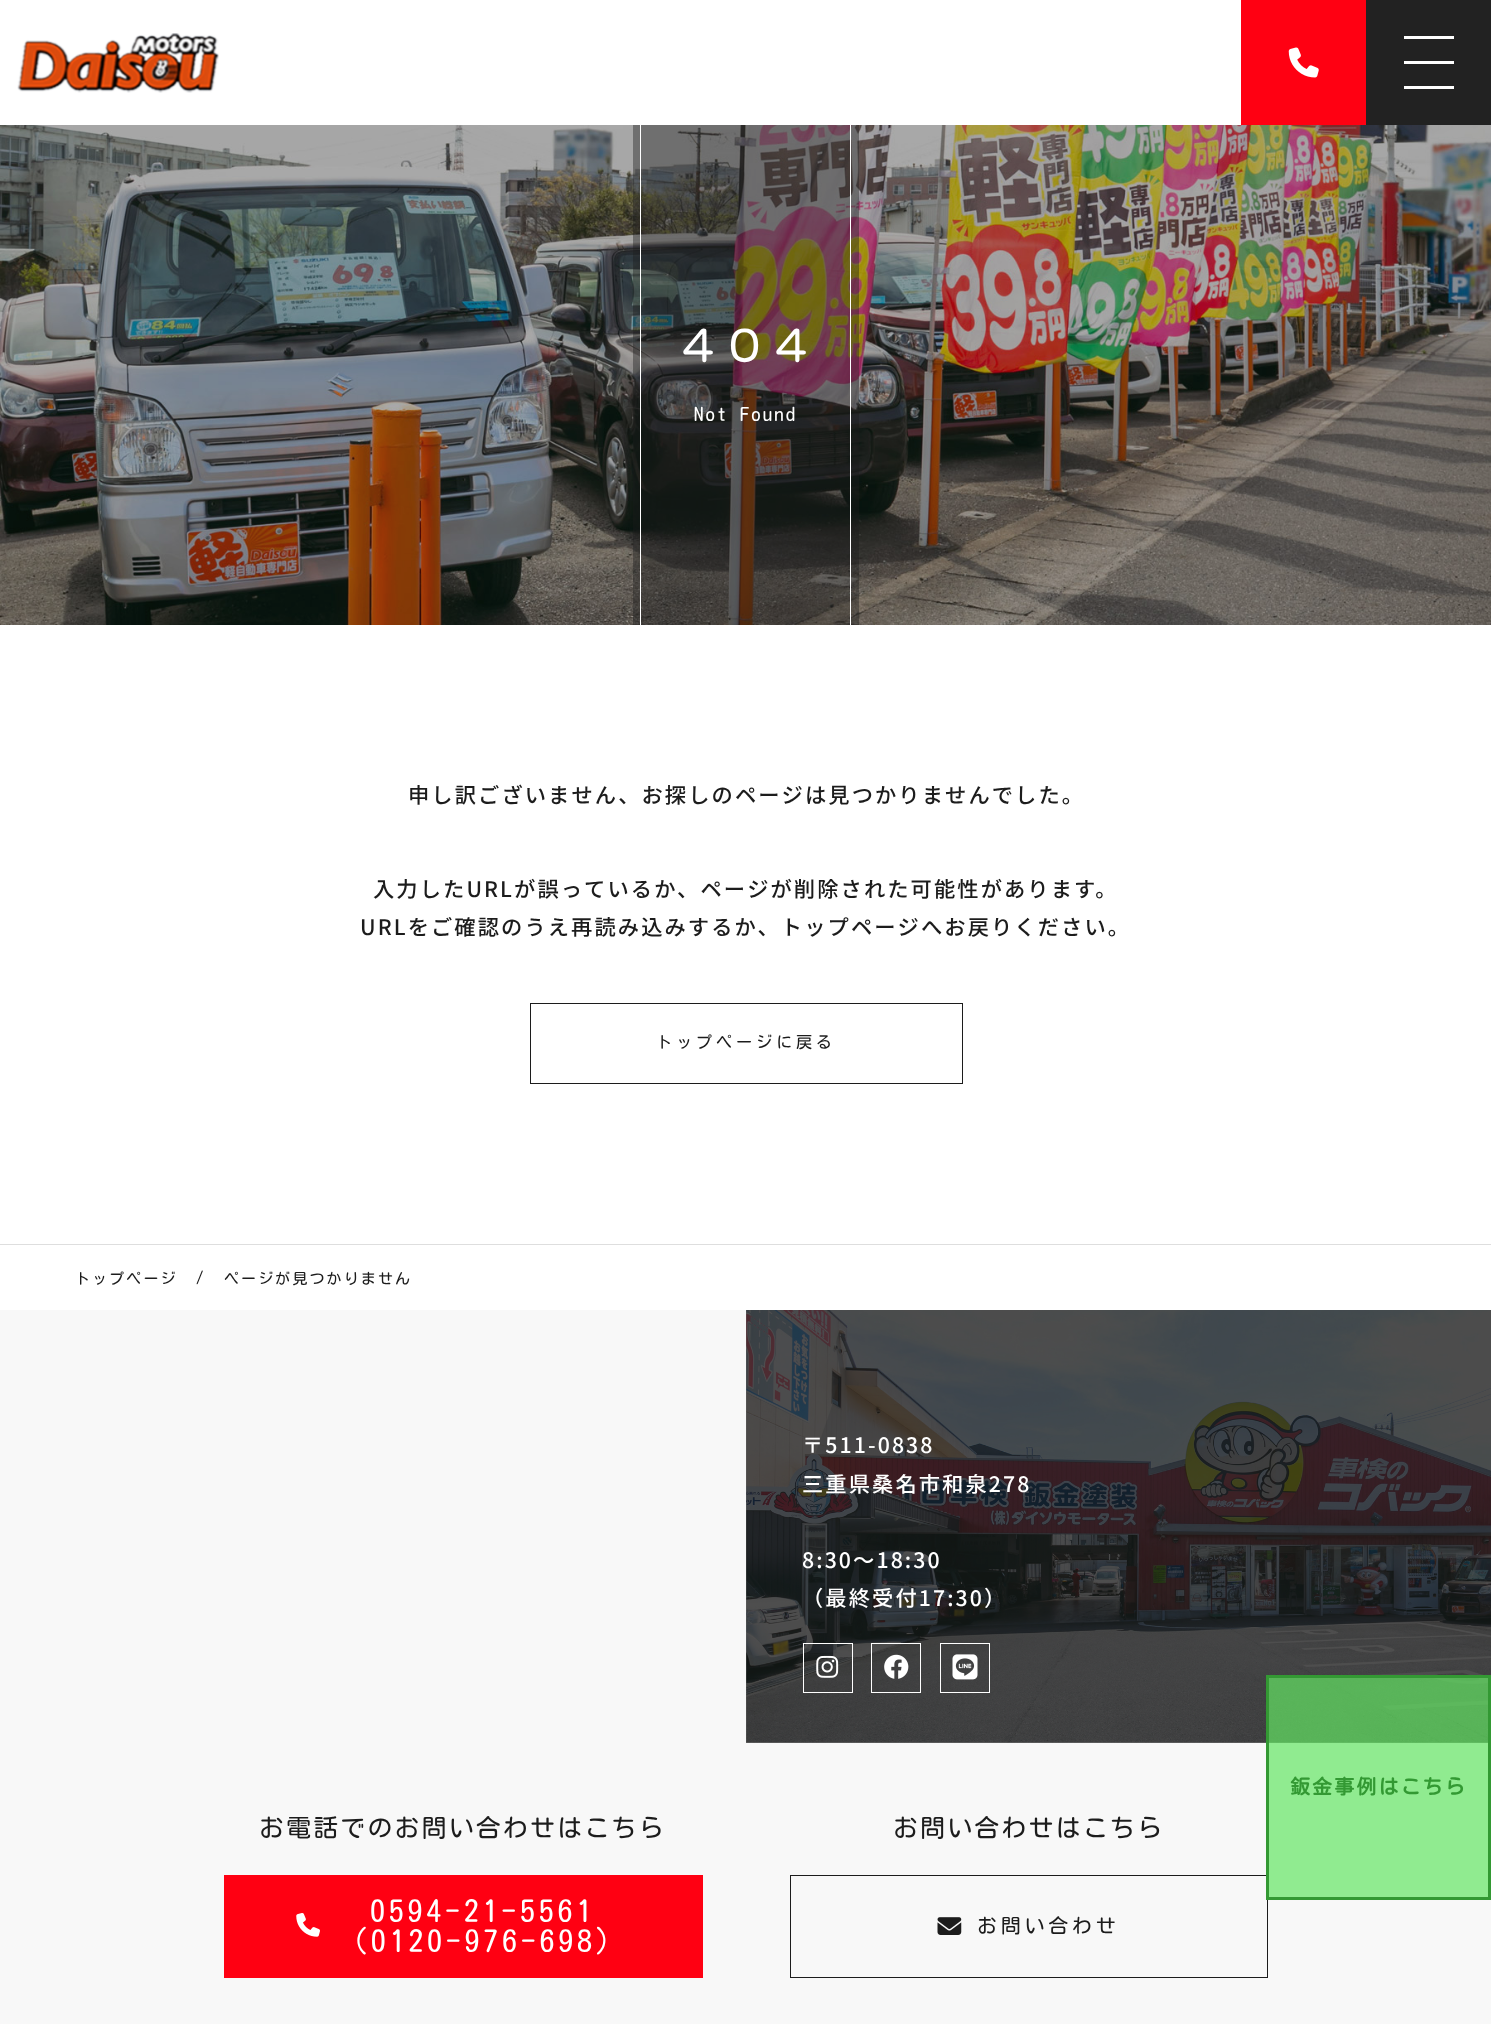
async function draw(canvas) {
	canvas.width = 1491;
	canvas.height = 2024;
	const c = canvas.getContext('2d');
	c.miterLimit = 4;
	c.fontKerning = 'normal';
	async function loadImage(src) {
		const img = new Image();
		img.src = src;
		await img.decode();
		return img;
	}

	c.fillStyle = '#fff';
	c.fillRect(0, 0, 1491, 2024);
	c.drawImage(await loadImage('img1.png'), 17, 33, 202, 60);
	c.fillStyle = '#ff0012';
	c.fillRect(1241, 0, 125, 125);
	c.drawImage(await loadImage('img2.png'), 1288, 47, 31, 31);
	for (const [x, y, w, h, color] of [
		[1366, 0, 125, 125, '#222'],
		[1404, 36, 50, 3, '#fff'],
		[1404, 61, 50, 3, '#fff'],
		[1404, 86, 50, 3, '#fff'],
	]) {
		c.fillStyle = color;
		c.fillRect(x, y, w, h);
	}
	c.drawImage(await loadImage('img3.png'), 0, 125, 1491, 500);
	c.fillStyle = '#1c1c1c66';
	c.fillRect(633, 125, 226, 500);
	c.fillStyle = '#fff';
	c.fillRect(640, 125, 1, 500);
	c.letterSpacing = '2.5px';
	c.font = '44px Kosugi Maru';
	c.fillText('４０４', 676, 362);
	c.fillRect(850, 125, 1, 500);
	c.letterSpacing = '2.1px';
	c.font = '18.75px Kosugi Maru';
	c.fillText('Not Found', 694, 421);
	c.font = '500 21.25px Noto Sans JP';
	c.fillStyle = '#1c1c1c';
	for (const [text, x, y] of [
		['申し訳ございません、お探しのページは見つかりませんでした。', 408, 803],
		['入力したURLが誤っているか、ページが削除された可能性があります。', 373, 897],
		['URLをご確認のうえ再読み込みするか、トップページへお戻りください。', 360, 935],
	]) {
		c.fillText(text, x, y);
	}
	c.strokeStyle = '#1c1c1c';
	c.strokeRect(530.5, 1003.5, 432, 80);
	c.letterSpacing = '3.75px';
	c.font = '16.25px Kosugi Maru';
	c.fillText('トップページに戻る', 656, 1048);
	for (const [x, y, w, h, color] of [
		[0, 1310, 1491, 714, '#f8f8f8'],
		[746, 1310, 742, 433, '#747474'],
		[0, 1244, 1491, 1, '#dedede'],
	]) {
		c.fillStyle = color;
		c.fillRect(x, y, w, h);
	}
	c.letterSpacing = '2.1px';
	c.font = '15px Kosugi Maru';
	c.fillStyle = '#1c1c1c';
	for (const [text, x, y] of [
		['トップページ', 75, 1284],
		['/', 196, 1283],
		['ページが見つかりません', 224, 1284],
	]) {
		c.fillText(text, x, y);
	}
	c.drawImage(await loadImage('img4.png'), 746, 1310, 745, 433);
	c.font = '500 21.25px Noto Sans JP';
	c.fillStyle = '#fff';
	for (const [text, x, y] of [
		['〒511-0838', 802, 1453],
		['三重県桑名市和泉278', 802, 1492],
		['8:30～18:30', 802, 1568],
		['（最終受付17:30）', 802, 1606],
	]) {
		c.fillText(text, x, y);
	}
	c.strokeStyle = '#fff';
	c.strokeRect(803.5, 1643.5, 49, 49);
	c.drawImage(await loadImage('img5.png'), 816, 1655, 23, 23);
	c.strokeRect(871.5, 1643.5, 49, 49);
	c.drawImage(await loadImage('img6.png'), 884, 1654, 25, 25);
	c.strokeRect(940.5, 1643.5, 49, 49);
	c.drawImage(await loadImage('img7.png'), 952, 1654, 26, 26);
	c.strokeStyle = '#1c1c1c';
	c.strokeRect(790.5, 1875.5, 477, 102);
	c.fillStyle = '#64e664b3';
	c.beginPath();
	c.rect(1267.5, 1676.5, 222, 222);
	c.fill();
	c.strokeStyle = '#393';
	c.lineWidth = 3;
	c.stroke();
	c.font = 'bold 20px Kosugi Maru';
	c.fillStyle = '#393';
	c.fillText('鈑金事例はこちら', 1290, 1794);
	c.font = '25px Kosugi Maru';
	c.fillStyle = '#1c1c1c';
	c.fillText('お電話でのお問い合わせはこちら', 259, 1837);
	c.fillStyle = '#ff0012';
	c.fillRect(224, 1875, 479, 103);
	c.drawImage(await loadImage('img8.png'), 296, 1913, 24, 24);
	c.letterSpacing = '3.75px';
	c.font = '30px Kosugi Maru';
	c.fillStyle = '#fff';
	c.fillText('0594-21-5561', 370, 1922);
	c.fillText('（0120-976-698）', 337, 1952);
	c.letterSpacing = '2.1px';
	c.font = '25px Kosugi Maru';
	c.fillStyle = '#1c1c1c';
	c.fillText('お問い合わせはこちら', 893, 1837);
	c.drawImage(await loadImage('img9.png'), 937, 1917, 25, 18);
	c.letterSpacing = '3.75px';
	c.font = '20px Kosugi Maru';
	c.fillText('お問い合わせ', 977, 1933);
}

draw(document.querySelector('canvas'));
